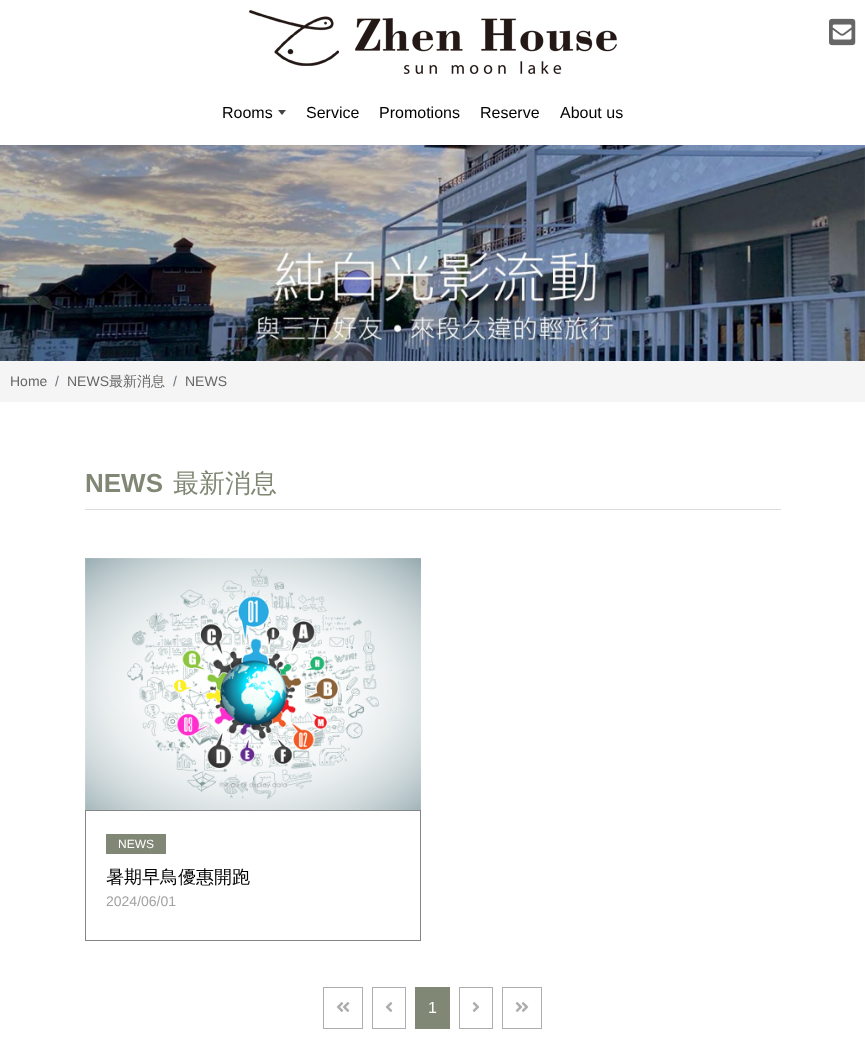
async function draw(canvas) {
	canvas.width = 865;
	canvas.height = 1050;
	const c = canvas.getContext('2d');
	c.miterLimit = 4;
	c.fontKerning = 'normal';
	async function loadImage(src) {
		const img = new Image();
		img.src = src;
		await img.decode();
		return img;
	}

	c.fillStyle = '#fff';
	c.fillRect(0, 0, 865, 1050);
	c.drawImage(await loadImage('img1.png'), 249, 10, 368, 64);
	c.drawImage(await loadImage('img2.png'), 829, 18, 27, 28);
	c.font = '16px Liberation Sans';
	c.fillStyle = '#000';
	c.fillText('Rooms', 222, 118);
	c.fillStyle = '#444';
	c.beginPath();
	c.moveTo(278, 110);
	c.lineTo(286, 110);
	c.lineTo(282, 115);
	c.closePath();
	c.fill();
	c.fillStyle = '#000';
	for (const [text, x, y] of [
		['Service', 306, 118],
		['Promotions', 379, 118],
		['Reserve', 480, 118],
		['About us', 560, 118],
	]) {
		c.fillText(text, x, y);
	}
	c.drawImage(await loadImage('img3.png'), 864, 145, 1, 216);
	c.drawImage(await loadImage('img4.png'), 0, 145, 865, 216);
	c.fillStyle = '#f5f5f5';
	c.fillRect(0, 361, 865, 41);
	c.font = '14px Liberation Sans';
	c.fillStyle = '#666';
	c.fillText('Home', 10, 386);
	c.fillStyle = '#6c757d';
	c.fillText('/', 55, 386);
	c.fillStyle = '#666';
	c.fillText('NEWS', 67, 386);
	c.font = '500 14px WenQuanYi Zen Hei';
	c.fillText('最新消息', 109, 386);
	c.font = '14px Liberation Sans';
	c.fillStyle = '#6c757d';
	c.fillText('/', 173, 386);
	c.fillStyle = '#666';
	c.fillText('NEWS', 185, 386);
	c.fillStyle = '#ddd';
	c.fillRect(85, 509, 696, 1);
	c.font = 'bold 26px Liberation Sans';
	c.fillStyle = '#808875';
	c.fillText('NEWS', 85, 492);
	c.font = '500 26px WenQuanYi Zen Hei';
	c.fillText('最新消息', 173, 492);
	c.drawImage(await loadImage('img5.png'), 85, 558, 336, 252);
	c.strokeStyle = '#848484';
	c.strokeRect(85.5, 810.5, 335, 130);
	c.fillRect(106, 834, 60, 20);
	c.font = '12px Liberation Sans';
	c.fillStyle = '#fff';
	c.fillText('NEWS', 118, 848);
	c.font = '500 18px WenQuanYi Zen Hei';
	c.fillStyle = '#000';
	c.fillText('暑期早鳥優惠開跑', 106, 883);
	c.font = '14px Liberation Sans';
	c.fillStyle = '#a2a2a2';
	c.fillText('2024/06/01', 106, 906);
	c.strokeStyle = '#adadad';
	c.strokeRect(323.5, 987.5, 39, 41);
	c.drawImage(await loadImage('img6.png'), 336, 1002, 14, 10);
	c.strokeRect(372.5, 987.5, 33, 41);
	c.drawImage(await loadImage('img7.png'), 385, 1002, 8, 10);
	c.fillStyle = '#808875';
	c.fillRect(415, 987, 35, 42);
	c.font = '16px Liberation Sans';
	c.fillStyle = '#fff';
	c.fillText('1', 428, 1013);
	c.strokeRect(459.5, 987.5, 33, 41);
	c.drawImage(await loadImage('img8.png'), 472, 1002, 8, 10);
	c.strokeRect(502.5, 987.5, 39, 41);
	c.drawImage(await loadImage('img9.png'), 515, 1002, 14, 10);
}

draw(document.querySelector('canvas'));
